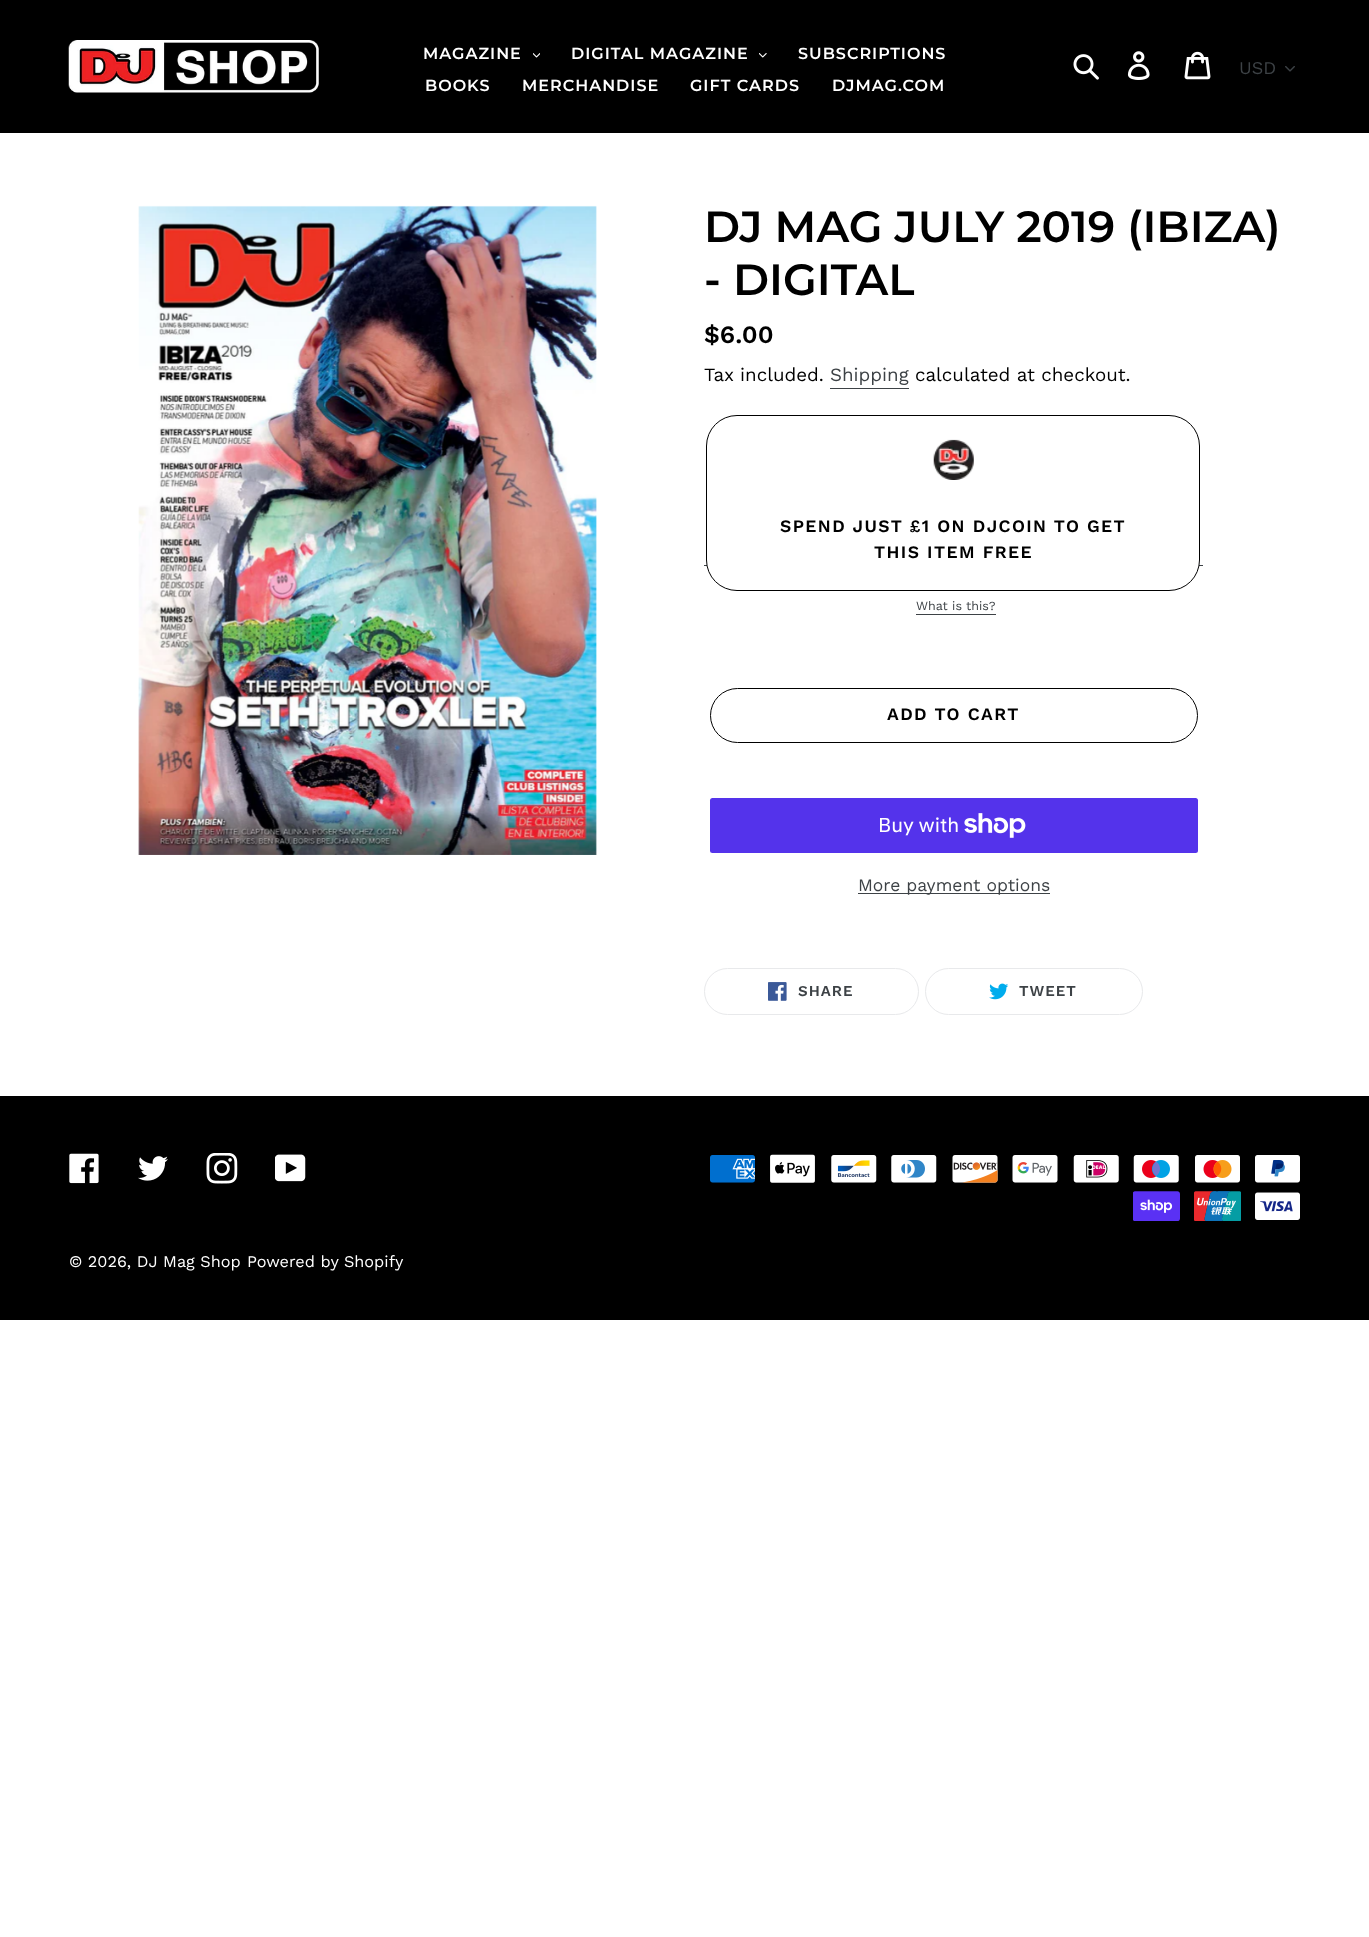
async function draw(canvas) {
	canvas.width = 1369;
	canvas.height = 1937;
	const c = canvas.getContext('2d');
	c.miterLimit = 4;
	c.fontKerning = 'normal';
	async function loadImage(src) {
		const img = new Image();
		img.src = src;
		await img.decode();
		return img;
	}

	c.fillStyle = '#fff';
	c.fillRect(0, 0, 1369, 1937);
	c.fillStyle = '#000';
	c.fillRect(0, 0, 1369, 133);
	c.drawImage(await loadImage('img1.png'), 68, 40, 251, 53);
	c.letterSpacing = '1px';
	c.font = '600 16px Montserrat';
	c.fillStyle = '#fff';
	c.fillText('MAGAZINE', 423, 59);
	c.drawImage(await loadImage('img2.png'), 533, 53, 7, 5);
	c.fillText('DIGITAL MAGAZINE', 571, 59);
	c.drawImage(await loadImage('img3.png'), 759, 53, 8, 5);
	for (const [text, x, y] of [
		['SUBSCRIPTIONS', 798, 59],
		['BOOKS', 425, 91],
		['MERCHANDISE', 522, 91],
		['GIFT CARDS', 690, 91],
		['DJMAG.COM', 832, 91],
	]) {
		c.fillText(text, x, y);
	}
	c.drawImage(await loadImage('img4.png'), 1073, 54, 26, 26);
	c.drawImage(await loadImage('img5.png'), 1127, 51, 23, 29);
	c.drawImage(await loadImage('img6.png'), 1184, 51, 27, 29);
	c.letterSpacing = '0px';
	c.font = '18px Work Sans';
	c.fillStyle = '#3d4246';
	c.fillText('USD', 1239, 74);
	c.drawImage(await loadImage('img7.png'), 1285, 66, 10, 6);
	c.drawImage(await loadImage('img8.png'), 138, 205, 459, 650);
	c.font = '600 43.75px Montserrat';
	c.fillStyle = '#000';
	c.fillText('DJ MAG JULY 2019 (IBIZA)', 704, 242);
	c.fillText('- DIGITAL', 704, 295);
	c.font = '600 25px Work Sans';
	c.fillText('$6.00', 704, 343);
	c.font = '18.75px Work Sans';
	c.fillText('Tax included.', 704, 381);
	c.fillStyle = '#3d4246';
	c.fillText('Shipping', 830, 381);
	c.fillRect(830, 388, 79, 1);
	c.fillStyle = '#000';
	c.fillText('calculated at checkout.', 915, 381);
	c.fillStyle = '#3d4246';
	c.fillRect(704, 565, 499, 1);
	c.fillStyle = '#fff';
	c.beginPath();
	c.roundRect(706.5, 415.5, 493, 175, 30.5);
	c.fill();
	c.strokeStyle = '#000';
	c.stroke();
	c.drawImage(await loadImage('img9.png'), 933, 439, 41, 41);
	c.letterSpacing = '1.4px';
	c.font = '600 17.5px Work Sans';
	c.fillStyle = '#000';
	c.fillText('SPEND JUST £1 ON DJCOIN TO GET', 780, 532);
	c.fillText('THIS ITEM FREE', 874, 558);
	c.letterSpacing = '0px';
	c.font = '12.5px Work Sans';
	c.fillStyle = '#3d4246';
	c.fillText('What is this?', 916, 610);
	c.fillRect(916, 614, 80, 1);
	c.beginPath();
	c.roundRect(710.5, 688.5, 487, 54, 27);
	c.stroke();
	c.letterSpacing = '1.4px';
	c.font = '600 17.5px Work Sans';
	c.fillStyle = '#000';
	c.fillText('ADD TO CART', 887, 720);
	c.fillStyle = '#5433eb';
	c.beginPath();
	c.roundRect(710, 798, 488, 55, 2.5);
	c.fill();
	c.letterSpacing = '0px';
	c.font = '20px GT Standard';
	c.fillStyle = '#fff';
	c.fillText('Buy with', 878, 832);
	c.drawImage(await loadImage('img10.png'), 964, 813, 62, 25);
	c.fillStyle = '#3d4246';
	c.fillRect(858, 893, 192, 1);
	c.font = '17.5px Work Sans';
	c.fillText('More payment options', 858, 891);
	c.beginPath();
	c.roundRect(704.5, 968.5, 214, 46, 23);
	c.strokeStyle = '#e8e9eb';
	c.stroke();
	c.drawImage(await loadImage('img11.png'), 768, 982, 19, 19);
	c.letterSpacing = '1px';
	c.font = '600 15px Work Sans';
	c.fillText('SHARE', 798, 996);
	c.beginPath();
	c.roundRect(925.5, 968.5, 217, 46, 23);
	c.stroke();
	c.drawImage(await loadImage('img12.png'), 989, 983, 20, 17);
	c.fillText('TWEET', 1019, 996);
	c.fillStyle = '#000';
	c.fillRect(0, 1096, 1369, 224);
	c.drawImage(await loadImage('img13.png'), 69, 1153, 30, 31);
	c.drawImage(await loadImage('img14.png'), 138, 1156, 30, 25);
	c.drawImage(await loadImage('img15.png'), 206, 1153, 32, 31);
	c.drawImage(await loadImage('img16.png'), 275, 1154, 31, 28);
	c.drawImage(await loadImage('img17.png'), 710, 1155, 45, 28);
	c.drawImage(await loadImage('img18.png'), 770, 1154, 45, 29);
	c.drawImage(await loadImage('img19.png'), 831, 1155, 46, 28);
	c.drawImage(await loadImage('img20.png'), 891, 1155, 46, 28);
	c.drawImage(await loadImage('img21.png'), 952, 1155, 46, 28);
	c.drawImage(await loadImage('img22.png'), 1012, 1155, 46, 28);
	c.drawImage(await loadImage('img23.png'), 1073, 1155, 46, 28);
	c.drawImage(await loadImage('img24.png'), 1133, 1155, 46, 28);
	c.drawImage(await loadImage('img25.png'), 1195, 1155, 45, 28);
	c.drawImage(await loadImage('img26.png'), 1255, 1155, 45, 28);
	c.drawImage(await loadImage('img27.png'), 1133, 1191, 47, 30);
	c.drawImage(await loadImage('img28.png'), 1194, 1191, 47, 30);
	c.drawImage(await loadImage('img29.png'), 1255, 1192, 45, 28);
	c.letterSpacing = '0px';
	c.font = '16.25px Work Sans';
	c.fillStyle = '#fff';
	c.fillText('© 2026, DJ Mag Shop', 69, 1267);
	c.fillText('Powered by Shopify', 247, 1267);
}

draw(document.querySelector('canvas'));
